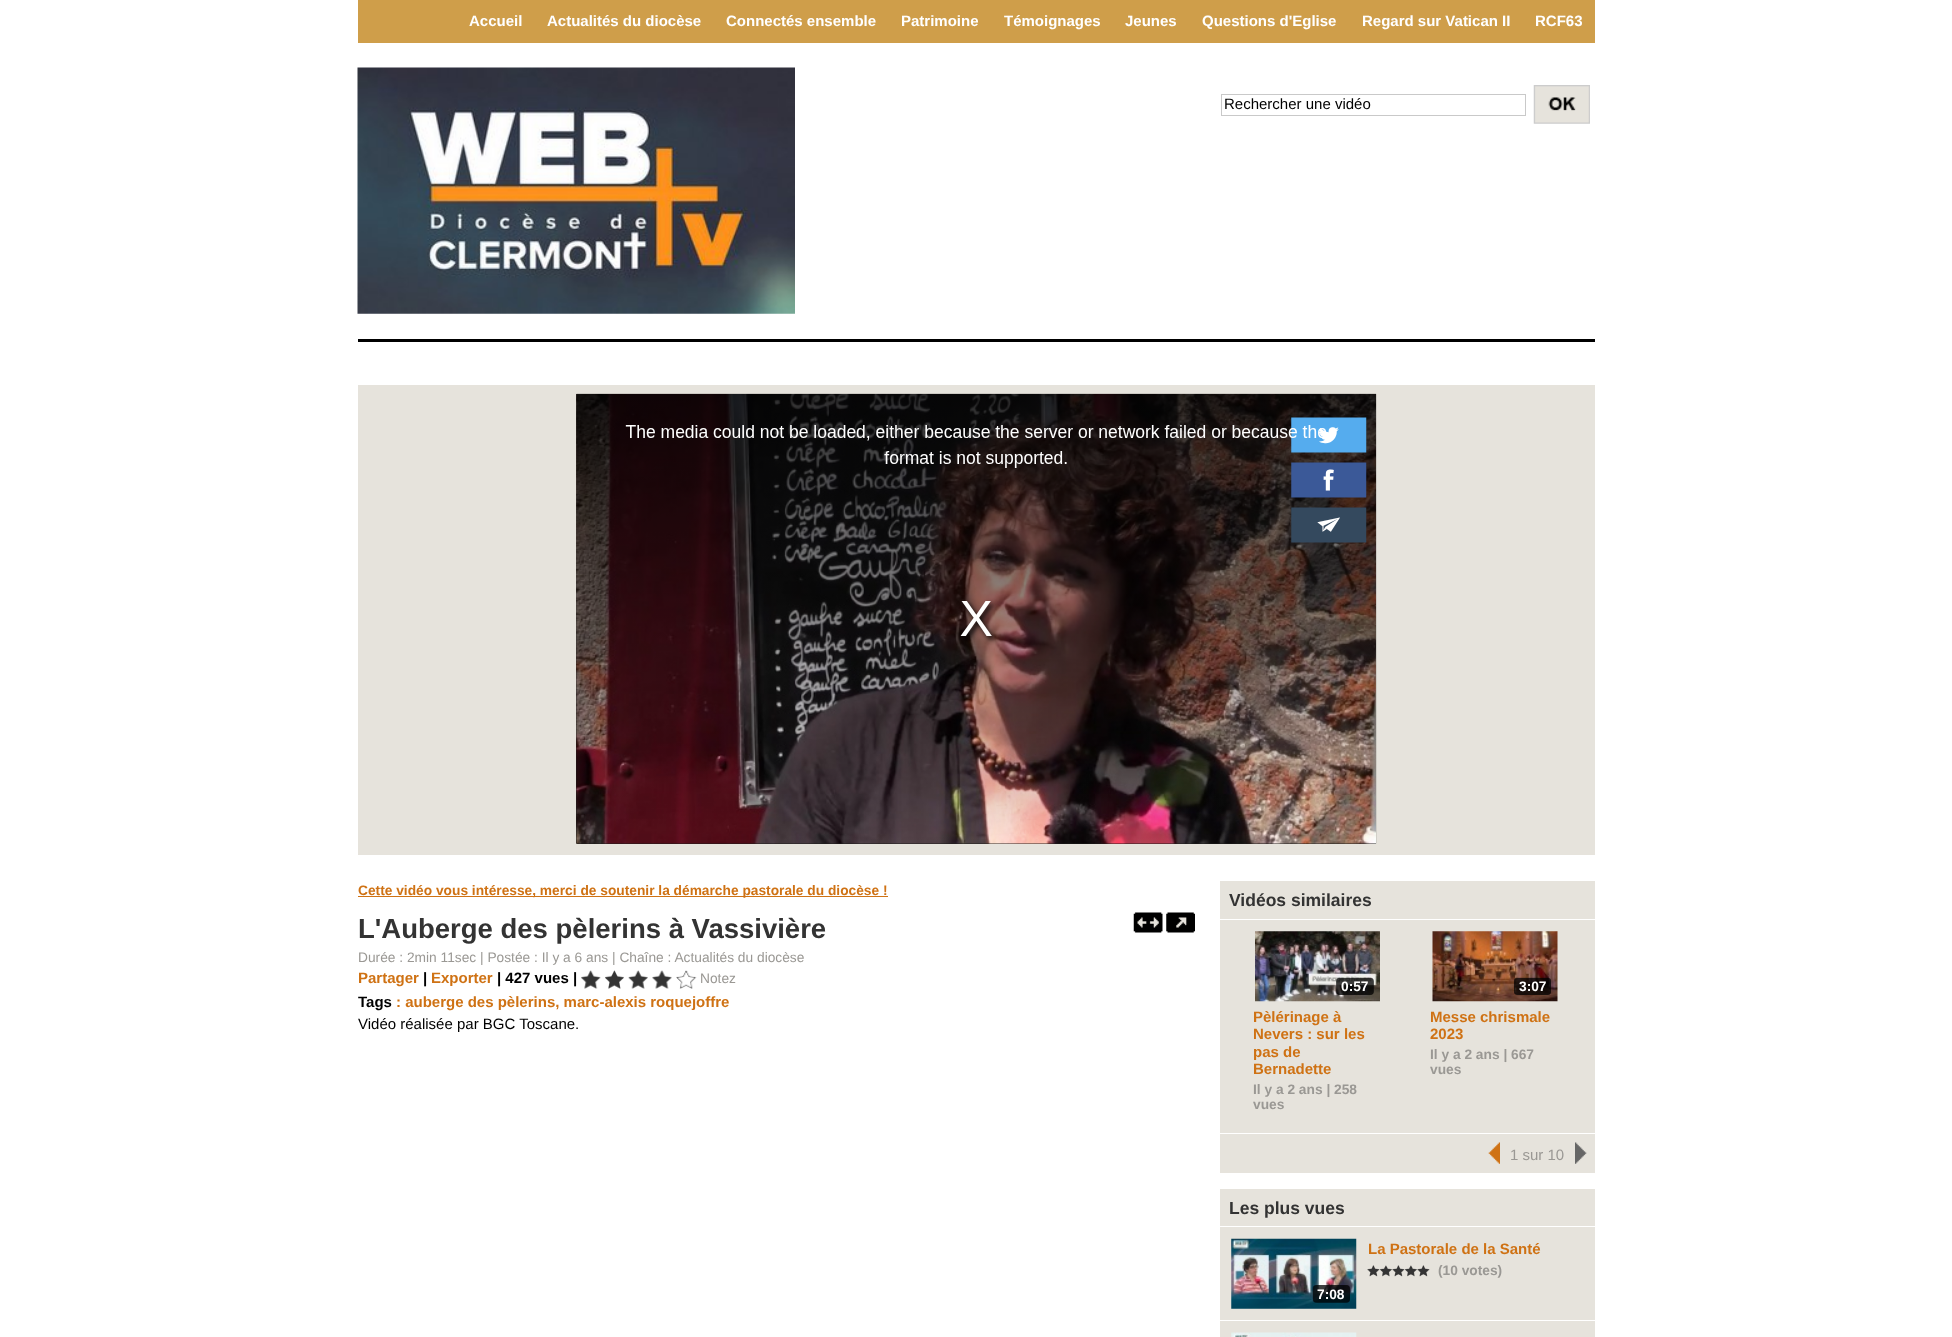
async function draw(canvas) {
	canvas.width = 1952;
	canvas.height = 1337;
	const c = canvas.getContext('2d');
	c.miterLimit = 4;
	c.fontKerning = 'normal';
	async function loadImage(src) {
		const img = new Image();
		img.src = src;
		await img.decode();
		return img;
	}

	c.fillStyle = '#fff';
	c.fillRect(0, 0, 1952, 1337);
	c.fillStyle = '#cf9e4a';
	c.fillRect(358, 0, 1237, 43);
	c.font = 'bold 15px Liberation Sans';
	c.fillStyle = '#fff';
	for (const [text, x, y] of [
		['Accueil', 469, 26],
		['Actualités du diocèse', 547, 26],
		['Connectés ensemble', 726, 26],
		['Patrimoine', 901, 26],
		['Témoignages', 1004, 26],
		['Jeunes', 1125, 26],
		['Questions d\'Eglise', 1202, 26],
		['Regard sur Vatican II', 1362, 26],
		['RCF63', 1535, 26],
	]) {
		c.fillText(text, x, y);
	}
	c.drawImage(await loadImage('img1.png'), 357, 67, 438, 247);
	c.strokeStyle = '#c9c9c9';
	c.strokeRect(1221.5, 94.5, 304, 21);
	c.font = '15px Liberation Sans';
	c.fillStyle = '#000';
	c.fillText('Rechercher une vidéo', 1224, 109);
	c.drawImage(await loadImage('img2.png'), 1533, 85, 57, 39);
	c.fillRect(358, 339, 1237, 3);
	c.fillStyle = '#e6e3dc';
	c.fillRect(358, 385, 1237, 470);
	c.drawImage(await loadImage('img3.png'), 576, 393, 801, 451);
	c.fillStyle = '#cf7214';
	c.fillRect(358, 896, 530, 1);
	c.font = 'bold 13.75px Liberation Sans';
	c.fillText('Cette vidéo vous intéresse, merci de soutenir la démarche pastorale du diocèse !', 358, 895);
	c.font = 'bold 27.5px Liberation Sans';
	c.fillStyle = '#333';
	c.fillText('L\'Auberge des pèlerins à Vassivière', 358, 938);
	c.drawImage(await loadImage('img4.png'), 1133, 912, 30, 21);
	c.drawImage(await loadImage('img5.png'), 1166, 912, 29, 21);
	c.font = '13.75px Liberation Sans';
	c.fillStyle = '#9a9894';
	c.fillText('Durée : 2min 11sec | Postée : Il y a 6 ans | Chaîne : Actualités du diocèse', 358, 962);
	c.font = 'bold 15px Liberation Sans';
	c.fillStyle = '#cf7214';
	c.fillText('Partager', 358, 983);
	c.fillStyle = '#000';
	c.fillText('|', 423, 983);
	c.fillStyle = '#cf7214';
	c.fillText('Exporter', 431, 983);
	c.fillStyle = '#000';
	c.fillText('| 427 vues |', 497, 983);
	c.drawImage(await loadImage('img6.png'), 581, 970, 20, 19);
	c.drawImage(await loadImage('img7.png'), 605, 970, 19, 19);
	c.drawImage(await loadImage('img8.png'), 628, 970, 20, 19);
	c.drawImage(await loadImage('img9.png'), 652, 970, 20, 19);
	c.drawImage(await loadImage('img10.png'), 676, 970, 21, 19);
	c.font = '13.75px Liberation Sans';
	c.fillStyle = '#9a9894';
	c.fillText('Notez', 700, 983);
	c.save();
	c.beginPath();
	c.rect(358, 385, 1237, 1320);
	c.clip();
	c.font = 'bold 15px Liberation Sans';
	c.fillStyle = '#000';
	c.fillText('Tags', 358, 1007);
	c.restore();
	c.font = 'bold 15px Liberation Sans';
	c.fillStyle = '#cf7214';
	c.fillText(': auberge des pèlerins, marc-alexis roquejoffre', 396, 1007);
	c.font = '15px Liberation Sans';
	c.fillStyle = '#000';
	c.fillText('Vidéo réalisée par BGC Toscane.', 358, 1029);
	c.fillStyle = '#e6e3dc';
	c.fillRect(1220, 881, 375, 38);
	c.font = 'bold 17.5px Liberation Sans';
	c.fillStyle = '#333';
	c.fillText('Vidéos similaires', 1229, 906);
	c.fillStyle = '#e6e3dc';
	c.fillRect(1220, 920, 375, 213);
	c.drawImage(await loadImage('img11.png'), 1255, 931, 125, 71);
	c.fillStyle = '#00000080';
	c.beginPath();
	c.roundRect(1336, 978, 38, 17, 4);
	c.fill();
	c.drawImage(await loadImage('img12.png'), 1336, 977, 38, 18);
	c.font = 'bold 13.75px Liberation Sans';
	c.fillStyle = '#fff';
	c.fillText('0:57', 1341, 991);
	c.font = 'bold 15px Liberation Sans';
	c.fillStyle = '#cf7214';
	for (const [text, x, y] of [
		['Pèlérinage à', 1253, 1022],
		['Nevers : sur les', 1253, 1039],
		['pas de', 1253, 1057],
		['Bernadette', 1253, 1074],
	]) {
		c.fillText(text, x, y);
	}
	c.font = 'bold 13.75px Liberation Sans';
	c.fillStyle = '#9a9894';
	c.fillText('Il y a 2 ans | 258', 1253, 1094);
	c.fillText('vues', 1253, 1109);
	c.drawImage(await loadImage('img13.png'), 1432, 931, 126, 71);
	c.fillStyle = '#00000080';
	c.beginPath();
	c.roundRect(1514, 978, 37, 17, 4);
	c.fill();
	c.drawImage(await loadImage('img14.png'), 1513, 977, 38, 18);
	c.fillStyle = '#fff';
	c.fillText('3:07', 1519, 991);
	c.font = 'bold 15px Liberation Sans';
	c.fillStyle = '#cf7214';
	c.fillText('Messe chrismale', 1430, 1022);
	c.fillText('2023', 1430, 1039);
	c.font = 'bold 13.75px Liberation Sans';
	c.fillStyle = '#9a9894';
	c.fillText('Il y a 2 ans | 667', 1430, 1059);
	c.fillText('vues', 1430, 1074);
	c.fillStyle = '#e6e3dc';
	c.fillRect(1220, 1134, 375, 39);
	c.drawImage(await loadImage('img15.png'), 1488, 1142, 12, 22);
	c.font = '15px Liberation Sans';
	c.fillStyle = '#9a9894';
	c.fillText('1 sur 10', 1510, 1160);
	c.drawImage(await loadImage('img16.png'), 1575, 1142, 12, 22);
	c.fillStyle = '#e6e3dc';
	c.fillRect(1220, 1189, 375, 131);
	c.fillStyle = '#fff';
	c.fillRect(1220, 1226, 375, 1);
	c.font = 'bold 17.5px Liberation Sans';
	c.fillStyle = '#333';
	c.fillText('Les plus vues', 1229, 1214);
	c.font = 'bold 15px Liberation Sans';
	c.fillStyle = '#cf7214';
	c.fillText('La Pastorale de la Santé', 1368, 1254);
	c.drawImage(await loadImage('img17.png'), 1367, 1265, 13, 12);
	c.drawImage(await loadImage('img18.png'), 1380, 1265, 12, 12);
	c.drawImage(await loadImage('img17.png'), 1392, 1265, 13, 12);
	c.drawImage(await loadImage('img18.png'), 1405, 1265, 12, 12);
	c.drawImage(await loadImage('img17.png'), 1417, 1265, 13, 12);
	c.font = 'bold 13.75px Liberation Sans';
	c.fillStyle = '#9a9894';
	c.fillText('(10 votes)', 1438, 1275);
	c.drawImage(await loadImage('img19.png'), 1231, 1238, 126, 71);
	c.fillStyle = '#00000080';
	c.beginPath();
	c.roundRect(1313, 1285, 37, 18, 4);
	c.fill();
	c.drawImage(await loadImage('img20.png'), 1312, 1285, 38, 18);
	c.fillStyle = '#fff';
	c.fillText('7:08', 1317, 1299);
	c.fillStyle = '#e6e3dc';
	c.fillRect(1220, 1321, 375, 16);
	c.drawImage(await loadImage('img21.png'), 1231, 1332, 126, 5);
}

draw(document.querySelector('canvas'));
